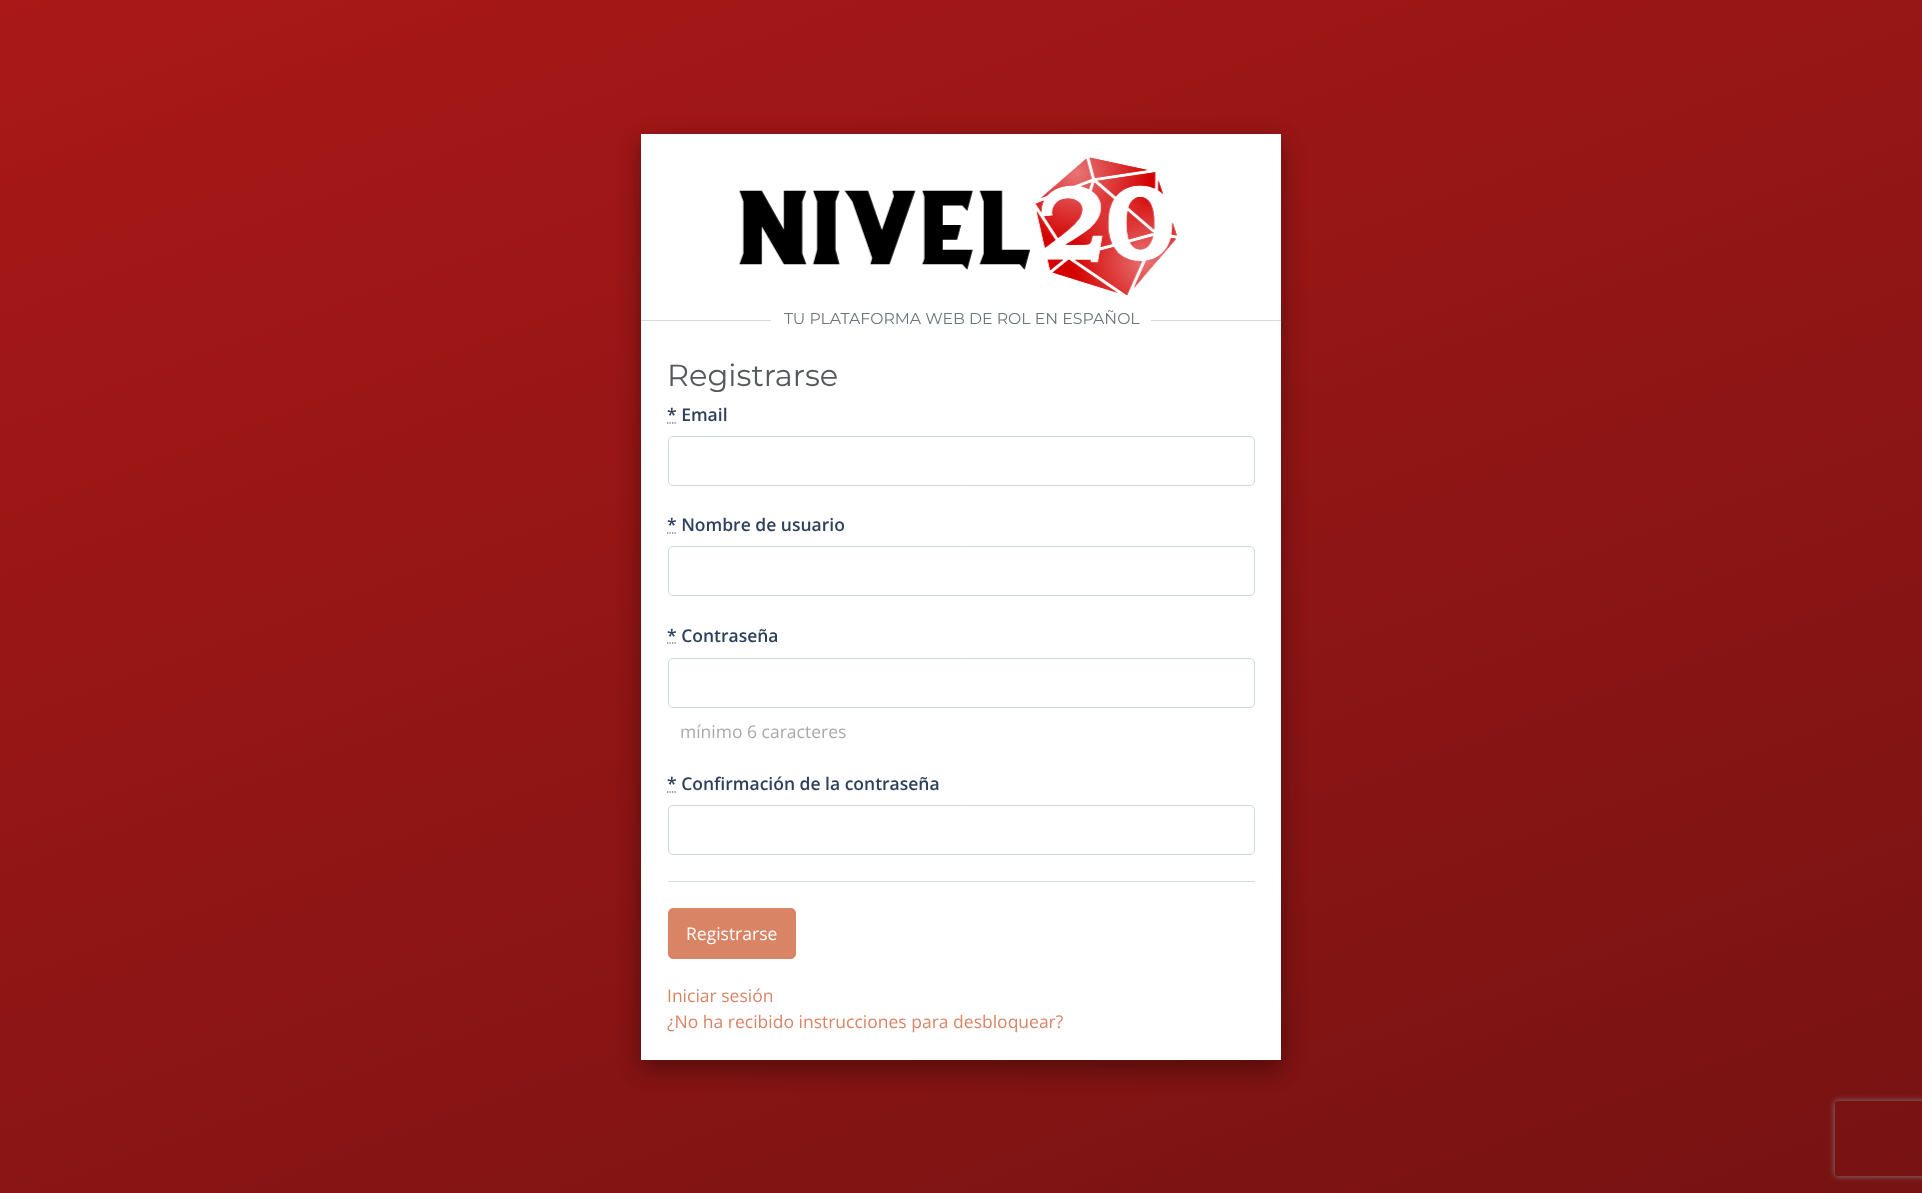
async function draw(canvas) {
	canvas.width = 1922;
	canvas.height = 1193;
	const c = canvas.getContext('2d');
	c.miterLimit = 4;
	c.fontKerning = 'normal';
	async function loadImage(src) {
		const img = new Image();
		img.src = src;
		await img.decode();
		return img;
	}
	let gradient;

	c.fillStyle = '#fff';
	c.fillRect(0, 0, 1922, 1193);
	gradient = c.createLinearGradient(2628, -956, 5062, 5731);
	gradient.addColorStop(0, '#aa1818');
	gradient.addColorStop(0.5, '#440d0d');
	gradient.addColorStop(1, '#9f1616');
	c.fillStyle = gradient;
	c.fillRect(0, 0, 1922, 1193);
	c.fillStyle = '#00000030';
	c.filter = 'blur(12.5px)';
	c.beginPath();
	c.rect(641, 141, 640, 927);
	c.fill();
	c.filter = 'none';
	c.fillStyle = '#00000033';
	c.filter = 'blur(10.5px)';
	c.beginPath();
	c.rect(641, 144, 640, 926);
	c.fill();
	c.filter = 'none';
	c.fillStyle = '#fff';
	c.fillRect(641, 134, 640, 926);
	c.drawImage(await loadImage('img1.png'), 739, 157, 438, 139);
	c.fillStyle = '#dadada';
	c.fillRect(641, 320, 640, 1);
	c.fillStyle = '#fff';
	c.fillRect(771, 320, 380, 1);
	c.font = '15.75px Montserrat';
	c.fillStyle = '#6c757d';
	c.fillText('TU PLATAFORMA WEB DE ROL EN ESPAÑOL', 784, 324);
	c.font = '30.5px Montserrat';
	c.fillStyle = '#55595c';
	c.fillText('Registrarse', 667, 386);
	c.font = '600 17.5px Open Sans';
	c.fillStyle = '#2e405c';
	c.fillText('* Email', 667, 421);
	c.beginPath();
	c.moveTo(667, 423);
	c.lineTo(676.5, 423);
	c.strokeStyle = '#2e405c';
	c.lineWidth = 1.2;
	c.setLineDash([1.25, 1.25]);
	c.stroke();
	c.beginPath();
	c.roundRect(668.5, 436.5, 586, 49, 4.5);
	c.strokeStyle = '#ccd6e6';
	c.lineWidth = 1;
	c.setLineDash([]);
	c.stroke();
	c.fillText('* Nombre de usuario', 667, 531);
	c.beginPath();
	c.moveTo(667, 533);
	c.lineTo(676.5, 533);
	c.strokeStyle = '#2e405c';
	c.lineWidth = 1.2;
	c.setLineDash([1.25, 1.25]);
	c.stroke();
	c.beginPath();
	c.roundRect(668.5, 546.5, 586, 49, 4.5);
	c.strokeStyle = '#ccd6e6';
	c.lineWidth = 1;
	c.setLineDash([]);
	c.stroke();
	c.beginPath();
	c.moveTo(667, 643);
	c.lineTo(676.5, 643);
	c.strokeStyle = '#2e405c';
	c.lineWidth = 1.2;
	c.setLineDash([1.25, 1.25]);
	c.stroke();
	c.fillText('* Contraseña', 667, 642);
	c.beginPath();
	c.roundRect(668.5, 658.5, 586, 49, 4.5);
	c.strokeStyle = '#ccd6e6';
	c.lineWidth = 1;
	c.setLineDash([]);
	c.stroke();
	c.font = '17.5px Open Sans';
	c.fillStyle = '#a9a9a9';
	c.fillText('mínimo 6 caracteres', 680, 738);
	c.font = '600 17.5px Open Sans';
	c.fillStyle = '#2e405c';
	c.fillText('* Confirmación de la contraseña', 667, 790);
	c.beginPath();
	c.moveTo(667, 792);
	c.lineTo(676.5, 792);
	c.strokeStyle = '#2e405c';
	c.lineWidth = 1.2;
	c.setLineDash([1.25, 1.25]);
	c.stroke();
	c.beginPath();
	c.roundRect(668.5, 805.5, 586, 49, 4.5);
	c.strokeStyle = '#ccd6e6';
	c.lineWidth = 1;
	c.setLineDash([]);
	c.stroke();
	c.fillStyle = '#d3dce9';
	c.fillRect(668, 881, 587, 1);
	c.fillStyle = '#da8466';
	c.beginPath();
	c.roundRect(668.5, 908.5, 127, 50, 4.5);
	c.fill();
	c.strokeStyle = '#da8466';
	c.stroke();
	c.font = '17.5px Open Sans';
	c.fillStyle = '#fff';
	c.fillText('Registrarse', 686, 940);
	c.save();
	c.beginPath();
	c.moveTo(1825, 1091);
	c.lineTo(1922, 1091);
	c.lineTo(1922, 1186);
	c.lineTo(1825, 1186);
	c.closePath();
	c.moveTo(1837.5, 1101);
	c.lineTo(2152.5, 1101);
	c.bezierCurveTo(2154, 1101, 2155, 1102, 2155, 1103.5);
	c.lineTo(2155, 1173.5);
	c.bezierCurveTo(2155, 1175, 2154, 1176, 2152.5, 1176);
	c.lineTo(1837.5, 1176);
	c.bezierCurveTo(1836, 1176, 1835, 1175, 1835, 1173.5);
	c.lineTo(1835, 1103.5);
	c.bezierCurveTo(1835, 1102, 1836, 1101, 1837.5, 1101);
	c.closePath();
	c.clip('evenodd');
	c.fillStyle = '#808080';
	c.filter = 'blur(3px)';
	c.beginPath();
	c.roundRect(1835, 1101, 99, 75, 2.5);
	c.fill();
	c.filter = 'none';
	c.restore();
	c.fillStyle = '#da8466';
	c.fillText('Iniciar sesión', 667, 1002);
	c.fillText('¿No ha recibido instrucciones para desbloquear?', 667, 1028);
}

draw(document.querySelector('canvas'));
